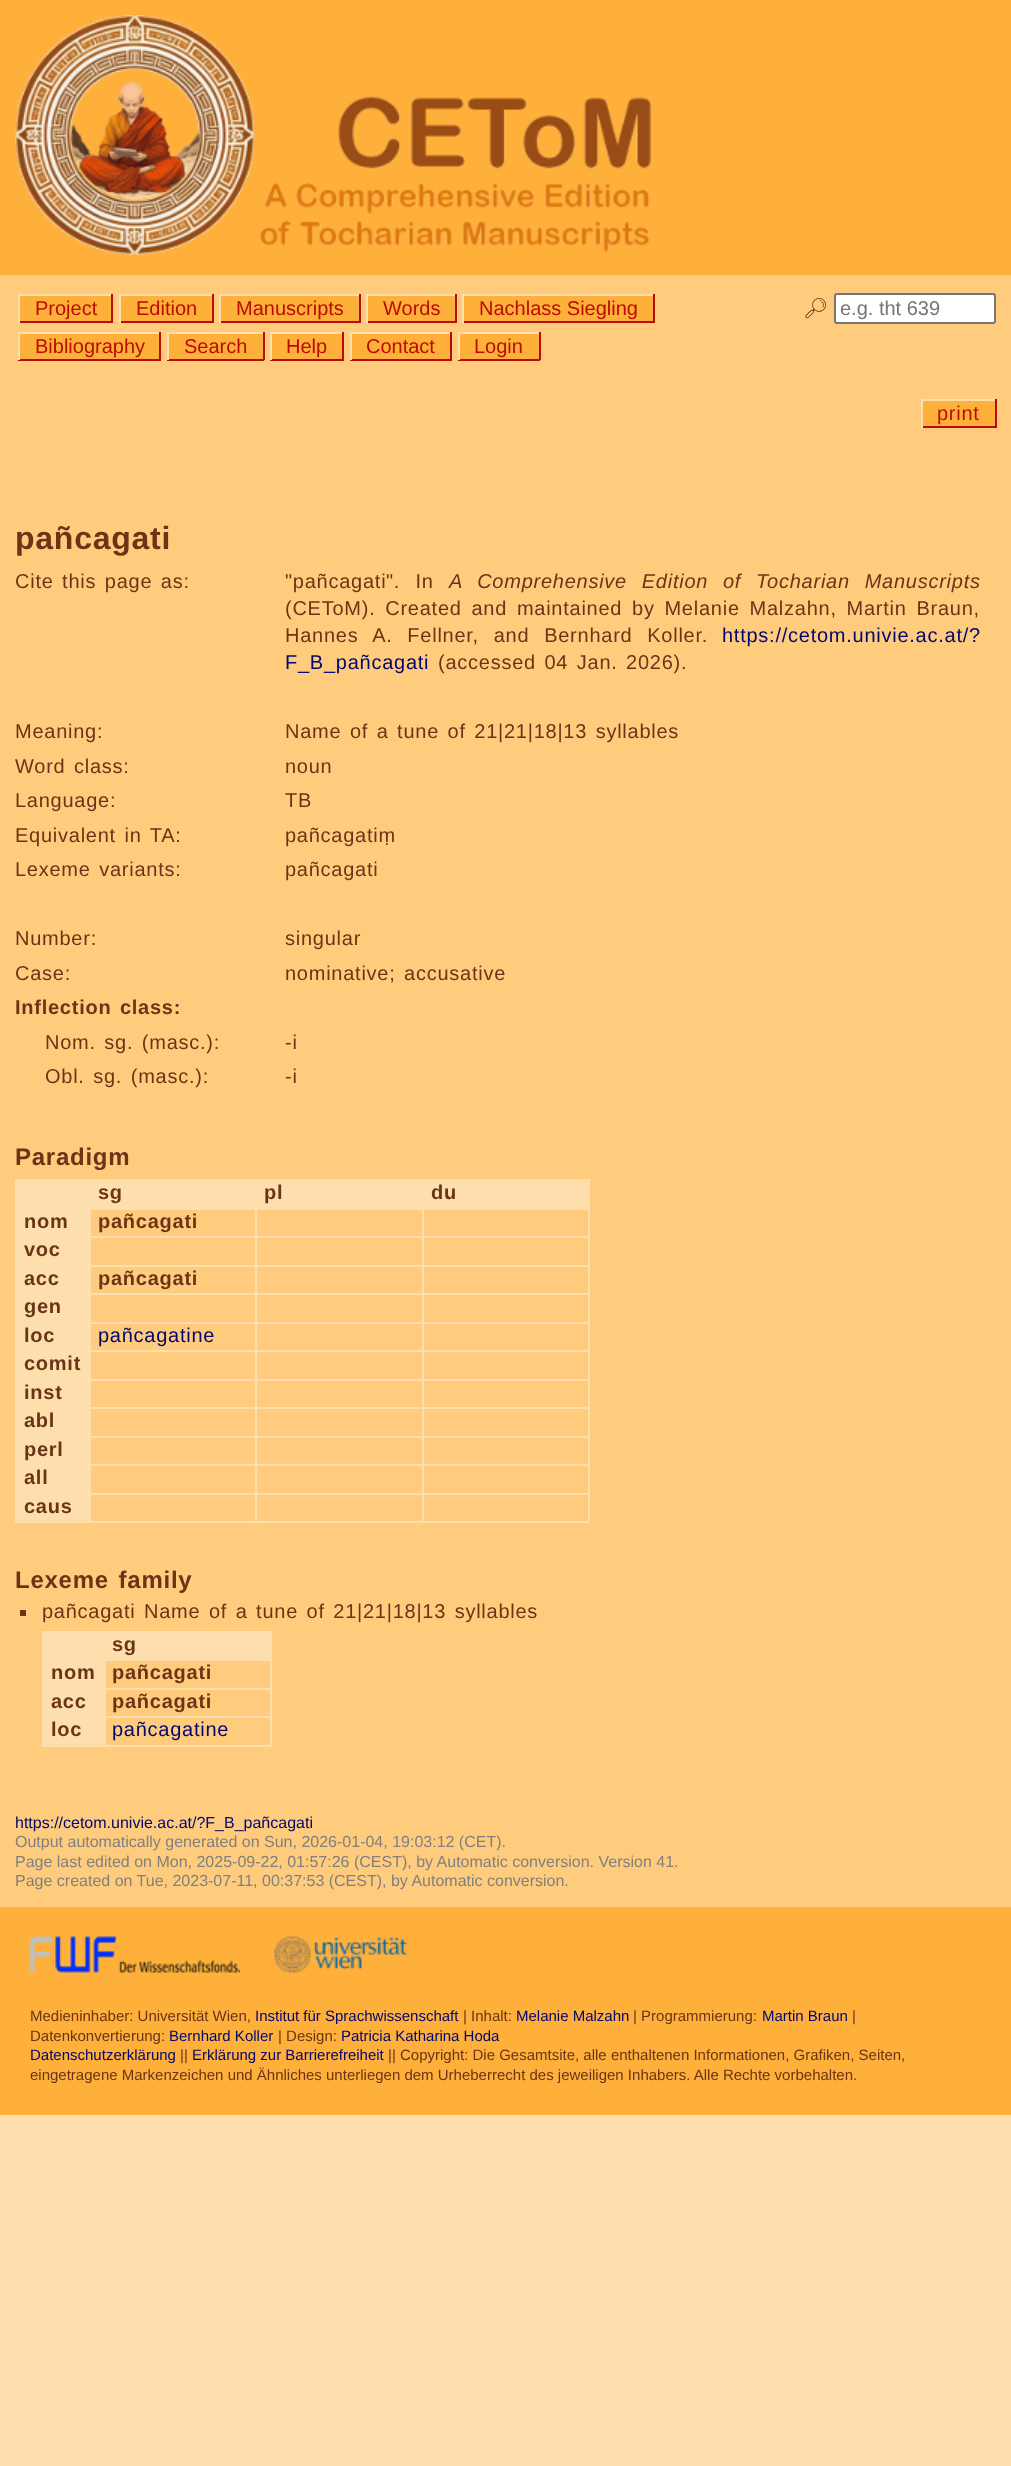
async function draw(canvas) {
	canvas.width = 1011;
	canvas.height = 2466;
	const c = canvas.getContext('2d');
	c.miterLimit = 4;
	c.fontKerning = 'normal';
	async function loadImage(src) {
		const img = new Image();
		img.src = src;
		await img.decode();
		return img;
	}

	c.fillStyle = '#ffdead';
	c.fillRect(0, 0, 1011, 2466);
	c.fillStyle = '#ffcc7d';
	c.fillRect(0, 275, 1011, 1632);
	c.fillStyle = '#ffb03b';
	c.fillRect(0, 0, 1011, 275);
	c.drawImage(await loadImage('img1.png'), 15, 15, 636, 240);
	c.fillRect(20, 296, 91, 25);
	c.font = '20px Liberation Sans';
	c.fillStyle = '#ba0c00';
	c.fillText('Project', 35, 315);
	for (const [x, y, w, h, color] of [
		[18, 294, 95, 2, '#ffdead'],
		[111, 294, 2, 29, '#ba0c00'],
		[18, 321, 95, 2, '#ba0c00'],
		[18, 294, 2, 29, '#ffdead'],
		[121, 296, 91, 25, '#ffb03b'],
	]) {
		c.fillStyle = color;
		c.fillRect(x, y, w, h);
	}
	c.fillStyle = '#ba0c00';
	c.fillText('Edition', 136, 315);
	for (const [x, y, w, h, color] of [
		[119, 294, 94, 2, '#ffdead'],
		[212, 294, 2, 29, '#ba0c00'],
		[119, 321, 94, 2, '#ba0c00'],
		[119, 294, 2, 29, '#ffdead'],
		[221, 296, 138, 25, '#ffb03b'],
	]) {
		c.fillStyle = color;
		c.fillRect(x, y, w, h);
	}
	c.fillStyle = '#ba0c00';
	c.fillText('Manuscripts', 236, 315);
	for (const [x, y, w, h, color] of [
		[219, 294, 141, 2, '#ffdead'],
		[359, 294, 2, 29, '#ba0c00'],
		[219, 321, 141, 2, '#ba0c00'],
		[219, 294, 2, 29, '#ffdead'],
		[368, 296, 87, 25, '#ffb03b'],
	]) {
		c.fillStyle = color;
		c.fillRect(x, y, w, h);
	}
	c.fillStyle = '#ba0c00';
	c.fillText('Words', 383, 315);
	for (const [x, y, w, h, color] of [
		[366, 294, 90, 2, '#ffdead'],
		[455, 294, 2, 29, '#ba0c00'],
		[366, 321, 90, 2, '#ba0c00'],
		[366, 294, 2, 29, '#ffdead'],
		[464, 296, 189, 25, '#ffb03b'],
	]) {
		c.fillStyle = color;
		c.fillRect(x, y, w, h);
	}
	c.fillStyle = '#ba0c00';
	c.fillText('Nachlass Siegling', 479, 315);
	for (const [x, y, w, h, color] of [
		[462, 294, 192, 2, '#ffdead'],
		[653, 294, 2, 29, '#ba0c00'],
		[462, 321, 192, 2, '#ba0c00'],
		[462, 294, 2, 29, '#ffdead'],
		[20, 334, 139, 25, '#ffb03b'],
	]) {
		c.fillStyle = color;
		c.fillRect(x, y, w, h);
	}
	c.fillStyle = '#ba0c00';
	c.fillText('Bibliography', 35, 353);
	for (const [x, y, w, h, color] of [
		[18, 332, 143, 2, '#ffdead'],
		[159, 332, 2, 28, '#ba0c00'],
		[18, 359, 143, 2, '#ba0c00'],
		[18, 332, 2, 28, '#ffdead'],
		[169, 334, 94, 25, '#ffb03b'],
	]) {
		c.fillStyle = color;
		c.fillRect(x, y, w, h);
	}
	c.fillStyle = '#ba0c00';
	c.fillText('Search', 184, 353);
	for (const [x, y, w, h, color] of [
		[167, 332, 97, 2, '#ffdead'],
		[263, 332, 2, 28, '#ba0c00'],
		[167, 359, 97, 2, '#ba0c00'],
		[167, 332, 2, 28, '#ffdead'],
		[272, 334, 70, 25, '#ffb03b'],
	]) {
		c.fillStyle = color;
		c.fillRect(x, y, w, h);
	}
	c.fillStyle = '#ba0c00';
	c.fillText('Help', 286, 353);
	for (const [x, y, w, h, color] of [
		[270, 332, 74, 2, '#ffdead'],
		[342, 332, 2, 28, '#ba0c00'],
		[270, 359, 74, 2, '#ba0c00'],
		[270, 332, 2, 28, '#ffdead'],
		[352, 334, 98, 25, '#ffb03b'],
	]) {
		c.fillStyle = color;
		c.fillRect(x, y, w, h);
	}
	c.fillStyle = '#ba0c00';
	c.fillText('Contact', 366, 353);
	for (const [x, y, w, h, color] of [
		[350, 332, 102, 2, '#ffdead'],
		[450, 332, 2, 28, '#ba0c00'],
		[350, 359, 102, 2, '#ba0c00'],
		[350, 332, 2, 28, '#ffdead'],
		[460, 334, 79, 25, '#ffb03b'],
	]) {
		c.fillStyle = color;
		c.fillRect(x, y, w, h);
	}
	c.fillStyle = '#ba0c00';
	c.fillText('Login', 474, 353);
	for (const [x, y, w, h, color] of [
		[458, 332, 82, 2, '#ffdead'],
		[539, 332, 2, 28, '#ba0c00'],
		[458, 359, 82, 2, '#ba0c00'],
		[458, 332, 2, 28, '#ffdead'],
	]) {
		c.fillStyle = color;
		c.fillRect(x, y, w, h);
	}
	c.font = '20px Noto Emoji';
	c.fillStyle = '#6a3416';
	c.fillText('🔎︎', 803, 315);
	c.fillStyle = '#fff';
	c.beginPath();
	c.roundRect(835, 294, 160, 29, 2);
	c.fill();
	c.strokeStyle = '#767676';
	c.lineWidth = 2;
	c.stroke();
	c.font = '20px Liberation Sans';
	c.fillStyle = '#757575';
	c.fillText('e.g. tht 639', 840, 315);
	c.fillStyle = '#ffb03b';
	c.fillRect(923, 401, 72, 25);
	c.letterSpacing = '0.75px';
	c.fillStyle = '#ba0c00';
	c.fillText('print', 937, 420);
	for (const [x, y, w, h, color] of [
		[921, 399, 75, 2, '#ffdead'],
		[995, 399, 2, 29, '#ba0c00'],
		[921, 426, 75, 2, '#ba0c00'],
		[921, 399, 2, 29, '#ffdead'],
	]) {
		c.fillStyle = color;
		c.fillRect(x, y, w, h);
	}
	c.font = 'bold 32px Liberation Sans';
	c.fillStyle = '#6a3416';
	c.fillText('pañcagati', 15, 549);
	c.wordSpacing = '2.25px';
	c.font = '20px Liberation Sans';
	c.fillText('Cite this page as:', 15, 588);
	c.wordSpacing = '0px';
	c.fillText('"pañcagati', 285, 588);
	c.wordSpacing = '9px';
	c.fillText('". In', 386, 588);
	c.wordSpacing = '8.5px';
	c.font = 'italic 20px Liberation Sans';
	c.fillText('A Comprehensive Edition of Tocharian Manuscripts', 449, 588);
	c.wordSpacing = '3.5px';
	c.font = '20px Liberation Sans';
	c.fillText('(CEToM). Created and maintained by Melanie Malzahn, Martin Braun,', 285, 615);
	c.wordSpacing = '8.5px';
	c.fillText('Hannes A. Fellner, and Bernhard Koller.', 285, 642);
	c.wordSpacing = '0px';
	c.fillStyle = '#00066e';
	c.fillText('https://cetom.univie.ac.at/?', 722, 642);
	c.fillText('F_B_pañcagati', 285, 669);
	c.wordSpacing = '2.25px';
	c.fillStyle = '#6a3416';
	c.fillText('(accessed 04 Jan. 2026).', 438, 669);
	c.wordSpacing = '0px';
	c.fillText('Meaning:', 15, 738);
	c.wordSpacing = '2.25px';
	c.fillText('Name of a tune of 21|21|18|13 syllables', 285, 738);
	c.fillText('Word class:', 15, 773);
	c.wordSpacing = '0px';
	for (const [text, x, y] of [
		['noun', 285, 773],
		['Language:', 15, 807],
		['TB', 285, 807],
	]) {
		c.fillText(text, x, y);
	}
	c.wordSpacing = '2.25px';
	c.fillText('Equivalent in TA:', 15, 842);
	c.wordSpacing = '0px';
	c.fillText('pañcagatiṃ', 285, 842);
	c.wordSpacing = '2.25px';
	c.fillText('Lexeme variants:', 15, 876);
	c.wordSpacing = '0px';
	for (const [text, x, y] of [
		['pañcagati', 285, 876],
		['Number:', 15, 945],
		['singular', 285, 945],
		['Case:', 15, 980],
	]) {
		c.fillText(text, x, y);
	}
	c.wordSpacing = '2.25px';
	c.fillText('nominative; accusative', 285, 980);
	c.font = 'bold 20px Liberation Sans';
	c.fillText('Inflection class:', 15, 1014);
	c.font = '20px Liberation Sans';
	c.fillText('Nom. sg. (masc.):', 45, 1049);
	c.wordSpacing = '0px';
	c.fillText('-i', 285, 1049);
	c.wordSpacing = '2.25px';
	c.fillText('Obl. sg. (masc.):', 45, 1083);
	c.wordSpacing = '0px';
	c.fillText('-i', 285, 1083);
	c.font = 'bold 24px Liberation Sans';
	c.fillText('Paradigm', 15, 1165);
	c.fillStyle = '#ffdead';
	c.fillRect(17, 1179, 573, 29);
	c.font = 'bold 20px Liberation Sans';
	c.fillStyle = '#6a3416';
	for (const [text, x, y] of [
		['sg', 98, 1199],
		['pl', 264, 1199],
		['du', 431, 1199],
	]) {
		c.fillText(text, x, y);
	}
	for (const [x, y, w, h, color] of [
		[422, 1208, 168, 2, '#ffdead'],
		[422, 1236, 168, 2, '#ffdead'],
		[422, 1265, 168, 2, '#ffdead'],
		[422, 1293, 168, 2, '#ffdead'],
		[422, 1322, 168, 2, '#ffdead'],
		[422, 1350, 168, 2, '#ffdead'],
		[422, 1379, 168, 2, '#ffdead'],
		[422, 1407, 168, 2, '#ffdead'],
		[422, 1436, 168, 2, '#ffdead'],
		[422, 1464, 168, 2, '#ffdead'],
		[422, 1493, 168, 2, '#ffdead'],
		[588, 1493, 2, 30, '#ffdead'],
		[422, 1521, 168, 2, '#ffdead'],
		[422, 1493, 2, 30, '#ffdead'],
		[255, 1493, 168, 2, '#ffdead'],
		[422, 1464, 2, 30, '#ffdead'],
		[255, 1464, 168, 2, '#ffdead'],
		[422, 1436, 2, 30, '#ffdead'],
		[255, 1436, 168, 2, '#ffdead'],
		[422, 1407, 2, 30, '#ffdead'],
		[255, 1407, 168, 2, '#ffdead'],
		[422, 1379, 2, 30, '#ffdead'],
		[255, 1379, 168, 2, '#ffdead'],
		[422, 1350, 2, 30, '#ffdead'],
		[255, 1350, 168, 2, '#ffdead'],
		[422, 1322, 2, 30, '#ffdead'],
		[255, 1322, 168, 2, '#ffdead'],
		[422, 1293, 2, 30, '#ffdead'],
		[255, 1293, 168, 2, '#ffdead'],
		[422, 1265, 2, 30, '#ffdead'],
		[255, 1265, 168, 2, '#ffdead'],
		[422, 1236, 2, 30, '#ffdead'],
		[255, 1236, 168, 2, '#ffdead'],
		[422, 1208, 2, 30, '#ffdead'],
		[255, 1208, 168, 2, '#ffdead'],
		[255, 1521, 168, 2, '#ffdead'],
		[255, 1493, 2, 30, '#ffdead'],
		[89, 1493, 168, 2, '#ffdead'],
		[255, 1464, 2, 30, '#ffdead'],
		[89, 1464, 168, 2, '#ffdead'],
		[255, 1436, 2, 30, '#ffdead'],
		[89, 1436, 168, 2, '#ffdead'],
		[255, 1407, 2, 30, '#ffdead'],
		[89, 1407, 168, 2, '#ffdead'],
		[255, 1379, 2, 30, '#ffdead'],
		[89, 1379, 168, 2, '#ffdead'],
		[255, 1350, 2, 30, '#ffdead'],
		[89, 1350, 168, 2, '#ffdead'],
		[255, 1322, 2, 30, '#ffdead'],
		[89, 1322, 168, 2, '#ffdead'],
		[255, 1293, 2, 30, '#ffdead'],
		[89, 1293, 168, 2, '#ffdead'],
		[255, 1265, 2, 30, '#ffdead'],
		[89, 1265, 168, 2, '#ffdead'],
		[255, 1236, 2, 30, '#ffdead'],
		[89, 1236, 168, 2, '#ffdead'],
		[255, 1208, 2, 30, '#ffdead'],
		[89, 1208, 168, 2, '#ffdead'],
		[17, 1208, 73, 313, '#ffdead'],
	]) {
		c.fillStyle = color;
		c.fillRect(x, y, w, h);
	}
	c.fillStyle = '#6a3416';
	c.fillText('nom', 24, 1228);
	for (const [x, y, w, h, color] of [
		[15, 1521, 242, 2, '#ffdead'],
		[90, 1493, 1, 30, '#ffdead'],
		[90, 1464, 1, 30, '#ffdead'],
		[90, 1436, 1, 30, '#ffdead'],
		[90, 1407, 1, 30, '#ffdead'],
		[90, 1379, 1, 30, '#ffdead'],
		[90, 1350, 1, 30, '#ffdead'],
		[90, 1322, 1, 30, '#ffdead'],
		[90, 1293, 1, 30, '#ffdead'],
		[90, 1265, 1, 30, '#ffdead'],
		[90, 1236, 1, 30, '#ffdead'],
		[90, 1208, 1, 30, '#ffdead'],
	]) {
		c.fillStyle = color;
		c.fillRect(x, y, w, h);
	}
	c.fillStyle = '#6a3416';
	c.fillText('pañcagati', 98, 1228);
	for (const [x, y, w, h, color] of [
		[588, 1464, 2, 30, '#ffdead'],
		[588, 1436, 2, 30, '#ffdead'],
		[588, 1407, 2, 30, '#ffdead'],
		[588, 1379, 2, 30, '#ffdead'],
		[588, 1350, 2, 30, '#ffdead'],
		[588, 1322, 2, 30, '#ffdead'],
		[588, 1293, 2, 30, '#ffdead'],
		[588, 1265, 2, 30, '#ffdead'],
		[588, 1236, 2, 30, '#ffdead'],
		[588, 1208, 2, 30, '#ffdead'],
	]) {
		c.fillStyle = color;
		c.fillRect(x, y, w, h);
	}
	c.fillStyle = '#6a3416';
	for (const [text, x, y] of [
		['voc', 24, 1256],
		['acc', 24, 1285],
		['pañcagati', 98, 1285],
		['gen', 24, 1313],
		['loc', 24, 1342],
	]) {
		c.fillText(text, x, y);
	}
	c.font = '20px Liberation Sans';
	c.fillStyle = '#00066e';
	c.fillText('pañcagatine', 98, 1342);
	c.font = 'bold 20px Liberation Sans';
	c.fillStyle = '#6a3416';
	for (const [text, x, y] of [
		['comit', 24, 1370],
		['inst', 24, 1399],
		['abl', 24, 1427],
		['perl', 24, 1456],
		['all', 24, 1484],
	]) {
		c.fillText(text, x, y);
	}
	c.fillStyle = '#ffdead';
	c.fillRect(15, 1179, 2, 344);
	c.fillStyle = '#6a3416';
	c.fillText('caus', 24, 1513);
	c.wordSpacing = '2.25px';
	c.font = 'bold 24px Liberation Sans';
	c.fillText('Lexeme family', 15, 1588);
	c.fillRect(20, 1610, 6, 6);
	c.wordSpacing = '0px';
	c.font = '20px Liberation Sans';
	c.fillText('pañcagati', 42, 1618);
	c.wordSpacing = '2.25px';
	c.fillText('Name of a tune of 21|21|18|13 syllables', 144, 1618);
	c.fillStyle = '#ffdead';
	c.fillRect(44, 1631, 226, 28);
	c.wordSpacing = '0px';
	c.font = 'bold 20px Liberation Sans';
	c.fillStyle = '#6a3416';
	c.fillText('sg', 112, 1651);
	c.fillStyle = '#ffdead';
	c.fillRect(44, 1659, 60, 86);
	c.fillStyle = '#6a3416';
	c.fillText('nom', 51, 1679);
	for (const [x, y, w, h, color] of [
		[104, 1659, 168, 2, '#ffdead'],
		[104, 1688, 168, 2, '#ffdead'],
		[104, 1716, 168, 2, '#ffdead'],
		[270, 1716, 2, 30, '#ffdead'],
		[270, 1688, 2, 30, '#ffdead'],
		[270, 1631, 2, 58, '#ffdead'],
		[104, 1745, 168, 2, '#ffdead'],
		[104, 1716, 2, 30, '#ffdead'],
		[104, 1688, 2, 30, '#ffdead'],
		[104, 1659, 2, 30, '#ffdead'],
	]) {
		c.fillStyle = color;
		c.fillRect(x, y, w, h);
	}
	c.fillStyle = '#6a3416';
	for (const [text, x, y] of [
		['pañcagati', 112, 1679],
		['acc', 51, 1708],
		['pañcagati', 112, 1708],
	]) {
		c.fillText(text, x, y);
	}
	c.fillStyle = '#ffdead';
	c.fillRect(42, 1745, 63, 2);
	c.fillRect(42, 1631, 2, 115);
	c.fillStyle = '#6a3416';
	c.fillText('loc', 51, 1736);
	c.font = '20px Liberation Sans';
	c.fillStyle = '#00066e';
	c.fillText('pañcagatine', 112, 1736);
	c.letterSpacing = '0px';
	c.font = '16px Liberation Sans';
	c.fillText('https://cetom.univie.ac.at/?F_B_pañcagati', 15, 1828);
	c.fillStyle = '#808080';
	for (const [text, x, y] of [
		['Output automatically generated on Sun, 2026-01-04, 19:03:12 (CET).', 15, 1847],
		['Page last edited on Mon, 2025-09-22, 01:57:26 (CEST), by Automatic conversion. Version 41.', 15, 1867],
		['Page created on Tue, 2023-07-11, 00:37:53 (CEST), by Automatic conversion.', 15, 1886],
	]) {
		c.fillText(text, x, y);
	}
	c.fillStyle = '#ffb03b';
	c.fillRect(0, 1907, 1011, 208);
	c.drawImage(await loadImage('img2.png'), 30, 1936, 210, 37);
	c.drawImage(await loadImage('img3.png'), 274, 1936, 133, 37);
	c.font = '15px Liberation Sans';
	c.fillStyle = '#6a3416';
	c.fillText('Medieninhaber: Universität Wien,', 30, 2021);
	c.fillStyle = '#00066e';
	c.fillText('Institut für Sprachwissenschaft', 255, 2021);
	c.fillStyle = '#6a3416';
	c.fillText('| Inhalt:', 463, 2021);
	c.fillStyle = '#00066e';
	c.fillText('Melanie Malzahn', 516, 2021);
	c.fillStyle = '#6a3416';
	c.fillText('| Programmierung:', 633, 2021);
	c.fillStyle = '#00066e';
	c.fillText('Martin Braun', 762, 2021);
	c.fillStyle = '#6a3416';
	c.fillText('|', 852, 2021);
	c.fillText('Datenkonvertierung:', 30, 2041);
	c.fillStyle = '#00066e';
	c.fillText('Bernhard Koller', 169, 2041);
	c.fillStyle = '#6a3416';
	c.fillText('| Design:', 278, 2041);
	c.fillStyle = '#00066e';
	c.fillText('Patricia Katharina Hoda', 341, 2041);
	c.fillText('Datenschutzerklärung', 30, 2060);
	c.fillStyle = '#6a3416';
	c.fillText('||', 180, 2060);
	c.fillStyle = '#00066e';
	c.fillText('Erklärung zur Barrierefreiheit', 192, 2060);
	c.fillStyle = '#6a3416';
	c.fillText('|| Copyright: Die Gesamtsite, alle enthaltenen Informationen, Grafiken, Seiten,', 388, 2060);
	c.fillText('eingetragene Markenzeichen und Ähnliches unterliegen dem Urheberrecht des jeweiligen Inhabers. Alle Rechte vorbehalten.', 30, 2080);
}

draw(document.querySelector('canvas'));
